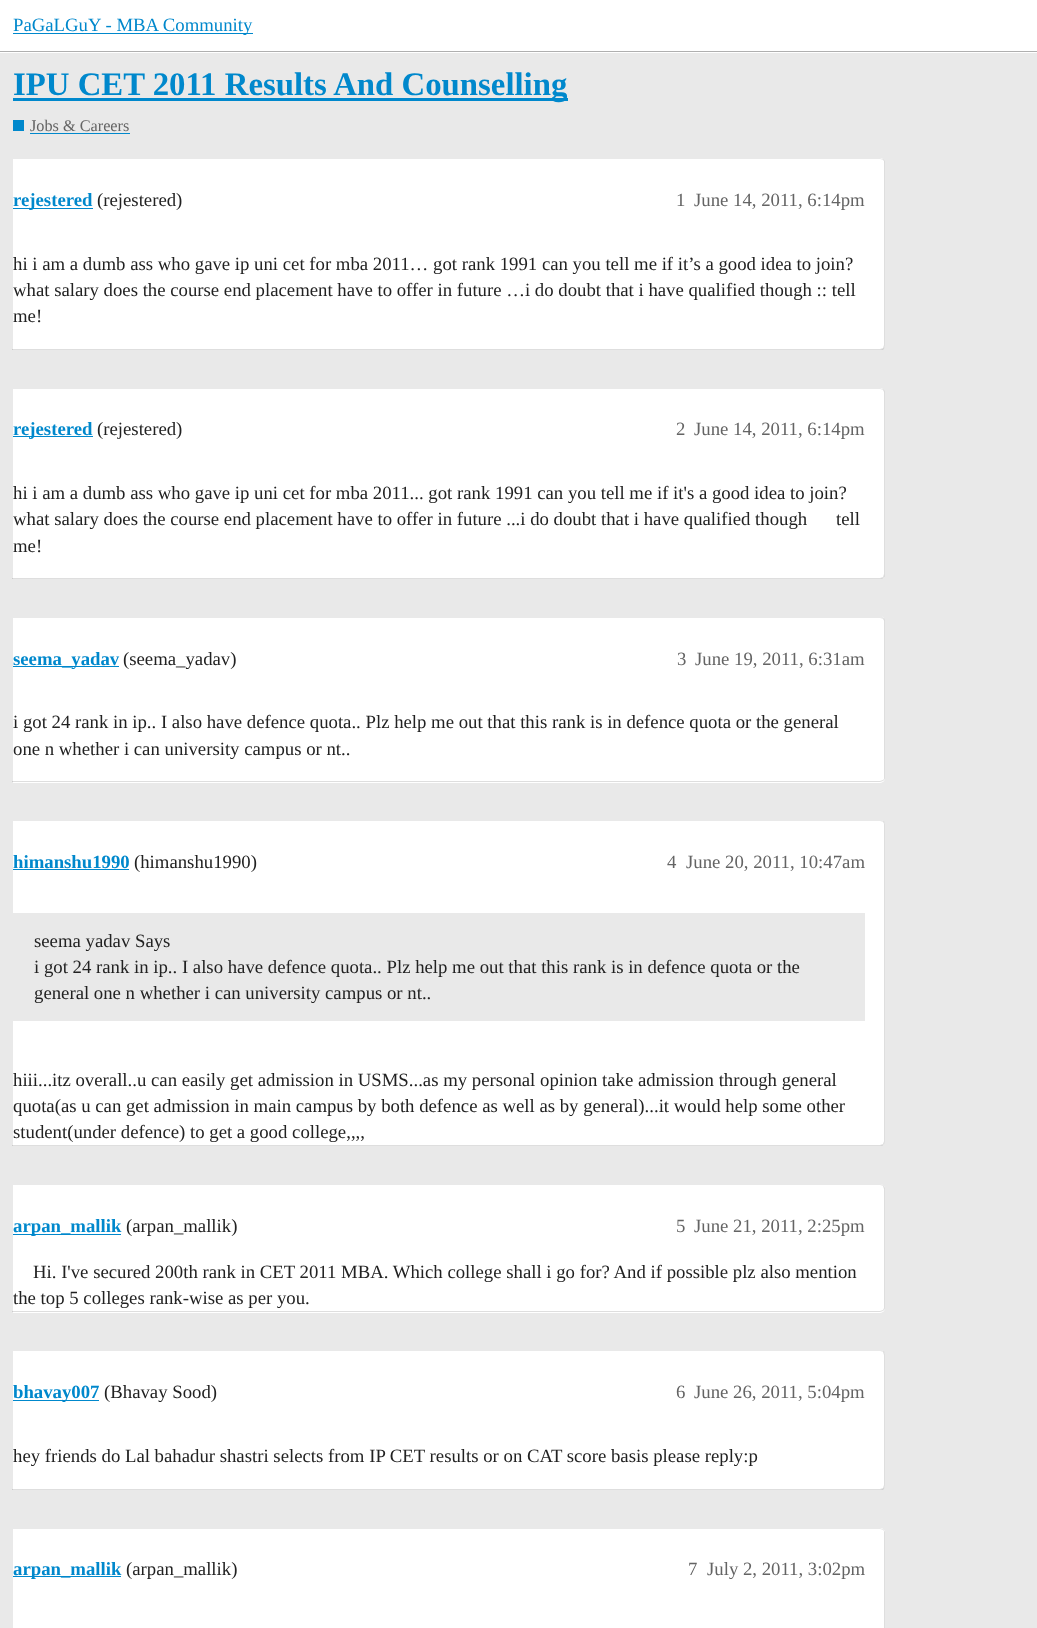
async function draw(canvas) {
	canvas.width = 1037;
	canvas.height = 1628;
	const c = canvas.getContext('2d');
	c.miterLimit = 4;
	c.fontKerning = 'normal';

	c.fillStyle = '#e9e9e9';
	c.fillRect(0, 0, 1037, 1628);
	for (const [x, y, w, h, color] of [
		[0, 0, 1037, 53, '#fff'],
		[0, 51, 1037, 1, '#afafaf'],
		[13, 33, 240, 1, '#08c'],
	]) {
		c.fillStyle = color;
		c.fillRect(x, y, w, h);
	}
	c.font = '18.75px Liberation Serif';
	c.fillText('PaGaLGuY - MBA Community', 13, 31);
	c.fillRect(13, 98, 555, 3);
	c.font = 'bold 32.8px Liberation Serif';
	c.fillText('IPU CET 2011 Results And Counselling', 13, 95);
	c.fillRect(13, 120, 11, 11);
	c.font = '16.25px Liberation Serif';
	c.fillStyle = '#646464';
	c.fillText('Jobs & Careers', 30, 131);
	c.fillStyle = '#08c';
	c.fillRect(30, 133, 100, 1);
	c.fillStyle = '#fff';
	c.beginPath();
	c.roundRect(13, 158, 872, 192, [0, 5, 5, 0]);
	c.fill();
	c.fillStyle = '#e9e9e9';
	c.beginPath();
	c.moveTo(12, 159);
	c.lineTo(12, 158);
	c.lineTo(880, 158);
	c.lineTo(883, 159);
	c.lineTo(883, 160);
	c.lineTo(880, 159);
	c.closePath();
	c.fill();
	c.fillStyle = '#22222226';
	c.beginPath();
	c.moveTo(885, 345);
	c.lineTo(885, 162);
	c.bezierCurveTo(885, 161, 884, 160, 883, 159);
	c.lineTo(883, 160);
	c.lineTo(884, 161);
	c.lineTo(884, 345);
	c.lineTo(883, 348);
	c.lineTo(884, 349);
	c.bezierCurveTo(884, 348, 885, 346, 885, 345);
	c.closePath();
	c.fill();
	c.beginPath();
	c.moveTo(12, 349);
	c.lineTo(880, 349);
	c.lineTo(883, 348);
	c.lineTo(884, 349);
	c.bezierCurveTo(883, 350, 882, 350, 880, 350);
	c.lineTo(12, 350);
	c.closePath();
	c.fill();
	c.fillStyle = '#08c';
	c.fillRect(13, 208, 80, 1);
	c.font = 'bold 18.75px Liberation Serif';
	c.fillText('rejestered', 13, 206);
	c.font = '18.75px Liberation Serif';
	c.fillStyle = '#222';
	c.fillText('(rejestered)', 97, 206);
	c.fillStyle = '#646464';
	c.fillText('1', 676, 206);
	c.fillText('June 14, 2011, 6:14pm', 694, 206);
	c.fillStyle = '#222';
	for (const [text, x, y] of [
		['hi i am a dumb ass who gave ip uni cet for mba 2011… got rank 1991 can you tell me if it’s a good idea to join?', 13, 270],
		['what salary does the course end placement have to offer in future …i do doubt that i have qualified though :: tell', 13, 296],
		['me!', 13, 322],
	]) {
		c.fillText(text, x, y);
	}
	c.fillStyle = '#fff';
	c.beginPath();
	c.roundRect(13, 388, 872, 191, [0, 5, 5, 0]);
	c.fill();
	c.fillStyle = '#e9e9e9';
	c.beginPath();
	c.moveTo(12, 389);
	c.lineTo(12, 388);
	c.lineTo(880, 388);
	c.lineTo(883, 389);
	c.lineTo(883, 390);
	c.lineTo(880, 389);
	c.closePath();
	c.fill();
	c.fillStyle = '#22222226';
	c.beginPath();
	c.moveTo(885, 574);
	c.lineTo(885, 392);
	c.bezierCurveTo(885, 391, 884, 390, 883, 389);
	c.lineTo(883, 390);
	c.lineTo(884, 392);
	c.lineTo(884, 574);
	c.lineTo(883, 577);
	c.lineTo(884, 577);
	c.bezierCurveTo(885, 577, 885, 575, 885, 574);
	c.closePath();
	c.fill();
	c.beginPath();
	c.moveTo(12, 578);
	c.lineTo(880, 578);
	c.lineTo(883, 577);
	c.lineTo(884, 577);
	c.lineTo(882, 579);
	c.lineTo(12, 579);
	c.closePath();
	c.fill();
	c.fillStyle = '#08c';
	c.fillRect(13, 436, 80, 1);
	c.font = 'bold 18.75px Liberation Serif';
	c.fillText('rejestered', 13, 435);
	c.font = '18.75px Liberation Serif';
	c.fillStyle = '#222';
	c.fillText('(rejestered)', 97, 435);
	c.fillStyle = '#646464';
	c.fillText('2', 676, 435);
	c.fillText('June 14, 2011, 6:14pm', 694, 435);
	c.fillStyle = '#222';
	for (const [text, x, y] of [
		['hi i am a dumb ass who gave ip uni cet for mba 2011... got rank 1991 can you tell me if it\'s a good idea to join?', 13, 499],
		['what salary does the course end placement have to offer in future ...i do doubt that i have qualified though', 13, 525],
		['tell', 836, 525],
		['me!', 13, 552],
	]) {
		c.fillText(text, x, y);
	}
	c.fillStyle = '#fff';
	c.beginPath();
	c.roundRect(13, 616, 872, 167, [0, 5, 5, 0]);
	c.fill();
	c.fillStyle = '#e9e9e9';
	c.beginPath();
	c.moveTo(12, 616);
	c.lineTo(882, 616);
	c.lineTo(884, 618);
	c.lineTo(883, 619);
	c.lineTo(880, 618);
	c.lineTo(12, 618);
	c.closePath();
	c.fill();
	c.fillStyle = '#22222226';
	c.beginPath();
	c.moveTo(883, 780);
	c.lineTo(884, 779);
	c.lineTo(884, 621);
	c.bezierCurveTo(884, 620, 883, 619, 883, 619);
	c.lineTo(884, 618);
	c.lineTo(885, 620);
	c.lineTo(885, 778);
	c.bezierCurveTo(885, 779, 884, 780, 883, 781);
	c.closePath();
	c.fill();
	c.beginPath();
	c.moveTo(12, 781);
	c.lineTo(880, 781);
	c.lineTo(883, 780);
	c.lineTo(883, 781);
	c.lineTo(880, 782);
	c.lineTo(12, 782);
	c.closePath();
	c.fill();
	c.fillStyle = '#08c';
	c.fillRect(13, 666, 106, 1);
	c.font = 'bold 18.75px Liberation Serif';
	c.fillText('seema_yadav', 13, 665);
	c.font = '18.75px Liberation Serif';
	c.fillStyle = '#222';
	c.fillText('(seema_yadav)', 123, 665);
	c.fillStyle = '#646464';
	c.fillText('3', 677, 665);
	c.fillText('June 19, 2011, 6:31am', 695, 665);
	c.fillStyle = '#222';
	c.fillText('i got 24 rank in ip.. I also have defence quota.. Plz help me out that this rank is in defence quota or the general', 13, 728);
	c.fillText('one n whether i can university campus or nt..', 13, 755);
	c.fillStyle = '#fff';
	c.beginPath();
	c.roundRect(13, 820, 872, 326, [0, 5, 5, 0]);
	c.fill();
	c.fillStyle = '#e9e9e9';
	c.beginPath();
	c.moveTo(12, 820);
	c.lineTo(880, 820);
	c.bezierCurveTo(882, 820, 883, 820, 884, 821);
	c.lineTo(883, 822);
	c.lineTo(880, 821);
	c.lineTo(12, 821);
	c.closePath();
	c.fill();
	c.fillStyle = '#22222226';
	c.beginPath();
	c.moveTo(883, 1144);
	c.bezierCurveTo(883, 1143, 884, 1142, 884, 1141);
	c.lineTo(884, 825);
	c.bezierCurveTo(884, 824, 884, 823, 883, 822);
	c.lineTo(884, 821);
	c.bezierCurveTo(884, 822, 885, 824, 885, 825);
	c.lineTo(885, 1141);
	c.bezierCurveTo(885, 1143, 884, 1144, 883, 1145);
	c.closePath();
	c.fill();
	c.beginPath();
	c.moveTo(12, 1145);
	c.lineTo(880, 1145);
	c.lineTo(883, 1144);
	c.lineTo(883, 1145);
	c.bezierCurveTo(883, 1146, 881, 1146, 880, 1146);
	c.lineTo(12, 1146);
	c.closePath();
	c.fill();
	c.font = 'bold 18.75px Liberation Serif';
	c.fillStyle = '#08c';
	c.fillText('himanshu1990', 13, 868);
	c.fillRect(13, 869, 116, 1);
	c.font = '18.75px Liberation Serif';
	c.fillStyle = '#222';
	c.fillText('(himanshu1990)', 134, 868);
	c.fillStyle = '#646464';
	c.fillText('4', 667, 868);
	c.fillText('June 20, 2011, 10:47am', 686, 868);
	c.fillStyle = '#e9e9e9';
	c.fillRect(13, 913, 852, 108);
	c.fillStyle = '#222';
	for (const [text, x, y] of [
		['seema yadav Says', 34, 947],
		['i got 24 rank in ip.. I also have defence quota.. Plz help me out that this rank is in defence quota or the', 34, 973],
		['general one n whether i can university campus or nt..', 34, 999],
		['hiii...itz overall..u can easily get admission in USMS...as my personal opinion take admission through general', 13, 1086],
		['quota(as u can get admission in main campus by both defence as well as by general)...it would help some other', 13, 1112],
		['student(under defence) to get a good college,,,,', 13, 1138],
	]) {
		c.fillText(text, x, y);
	}
	c.fillStyle = '#fff';
	c.beginPath();
	c.roundRect(13, 1184, 872, 129, [0, 5, 5, 0]);
	c.fill();
	c.fillStyle = '#e9e9e9';
	c.beginPath();
	c.moveTo(12, 1185);
	c.lineTo(12, 1184);
	c.lineTo(880, 1184);
	c.bezierCurveTo(881, 1184, 883, 1184, 883, 1185);
	c.lineTo(883, 1186);
	c.lineTo(880, 1185);
	c.closePath();
	c.fill();
	c.fillStyle = '#22222226';
	c.beginPath();
	c.moveTo(883, 1185);
	c.lineTo(885, 1188);
	c.lineTo(885, 1308);
	c.bezierCurveTo(885, 1309, 884, 1310, 883, 1311);
	c.lineTo(883, 1310);
	c.lineTo(884, 1308);
	c.lineTo(884, 1189);
	c.lineTo(883, 1186);
	c.closePath();
	c.fill();
	c.beginPath();
	c.moveTo(12, 1311);
	c.lineTo(880, 1311);
	c.lineTo(883, 1310);
	c.lineTo(883, 1311);
	c.lineTo(880, 1312);
	c.lineTo(12, 1312);
	c.closePath();
	c.fill();
	c.fillStyle = '#08c';
	c.fillRect(13, 1234, 108, 1);
	c.font = 'bold 18.75px Liberation Serif';
	c.fillText('arpan_mallik', 13, 1232);
	c.font = '18.75px Liberation Serif';
	c.fillStyle = '#222';
	c.fillText('(arpan_mallik)', 126, 1232);
	c.fillStyle = '#646464';
	c.fillText('5', 676, 1232);
	c.fillText('June 21, 2011, 2:25pm', 694, 1232);
	c.fillStyle = '#222';
	c.fillText('Hi. I\'ve secured 200th rank in CET 2011 MBA. Which college shall i go for? And if possible plz also mention', 33, 1278);
	c.fillText('the top 5 colleges rank-wise as per you.', 13, 1304);
	c.fillStyle = '#fff';
	c.beginPath();
	c.roundRect(13, 1350, 872, 140, [0, 5, 5, 0]);
	c.fill();
	c.fillStyle = '#e9e9e9';
	c.beginPath();
	c.moveTo(12, 1350);
	c.lineTo(880, 1350);
	c.bezierCurveTo(882, 1350, 883, 1350, 884, 1351);
	c.lineTo(883, 1352);
	c.lineTo(880, 1351);
	c.lineTo(12, 1351);
	c.closePath();
	c.fill();
	c.fillStyle = '#22222226';
	c.beginPath();
	c.moveTo(883, 1488);
	c.lineTo(884, 1485);
	c.lineTo(884, 1355);
	c.lineTo(883, 1352);
	c.lineTo(884, 1351);
	c.bezierCurveTo(884, 1352, 885, 1354, 885, 1355);
	c.lineTo(885, 1485);
	c.bezierCurveTo(885, 1486, 884, 1488, 884, 1489);
	c.closePath();
	c.fill();
	c.beginPath();
	c.moveTo(12, 1489);
	c.lineTo(880, 1489);
	c.lineTo(883, 1488);
	c.lineTo(884, 1489);
	c.bezierCurveTo(883, 1490, 882, 1490, 880, 1490);
	c.lineTo(12, 1490);
	c.closePath();
	c.fill();
	c.fillStyle = '#08c';
	c.fillRect(13, 1400, 86, 1);
	c.font = 'bold 18.75px Liberation Serif';
	c.fillText('bhavay007', 13, 1398);
	c.font = '18.75px Liberation Serif';
	c.fillStyle = '#222';
	c.fillText('(Bhavay Sood)', 104, 1398);
	c.fillStyle = '#646464';
	c.fillText('6', 676, 1398);
	c.fillText('June 26, 2011, 5:04pm', 694, 1398);
	c.fillStyle = '#222';
	c.fillText('hey friends do Lal bahadur shastri selects from IP CET results or on CAT score basis please reply:p', 13, 1462);
	c.fillStyle = '#fff';
	c.beginPath();
	c.moveTo(13, 1528);
	c.lineTo(880, 1528);
	c.bezierCurveTo(883, 1528, 885, 1530, 885, 1533);
	c.lineTo(885, 1628);
	c.bezierCurveTo(885, 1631, 883, 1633, 880, 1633);
	c.lineTo(13, 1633);
	c.closePath();
	c.fill();
	c.fillStyle = '#e9e9e9';
	c.beginPath();
	c.moveTo(12, 1529);
	c.lineTo(12, 1528);
	c.lineTo(880, 1528);
	c.lineTo(883, 1529);
	c.lineTo(883, 1530);
	c.lineTo(880, 1529);
	c.closePath();
	c.fill();
	c.fillStyle = '#22222226';
	c.beginPath();
	c.moveTo(885, 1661);
	c.lineTo(885, 1532);
	c.lineTo(883, 1529);
	c.lineTo(883, 1530);
	c.lineTo(884, 1531);
	c.lineTo(884, 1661);
	c.lineTo(883, 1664);
	c.lineTo(883, 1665);
	c.bezierCurveTo(884, 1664, 885, 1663, 885, 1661);
	c.closePath();
	c.fill();
	c.fillStyle = '#08c';
	c.fillRect(13, 1576, 108, 1);
	c.font = 'bold 18.75px Liberation Serif';
	c.fillText('arpan_mallik', 13, 1575);
	c.font = '18.75px Liberation Serif';
	c.fillStyle = '#222';
	c.fillText('(arpan_mallik)', 126, 1575);
	c.fillStyle = '#646464';
	c.fillText('7', 688, 1575);
	c.fillText('July 2, 2011, 3:02pm', 707, 1575);
}

draw(document.querySelector('canvas'));
